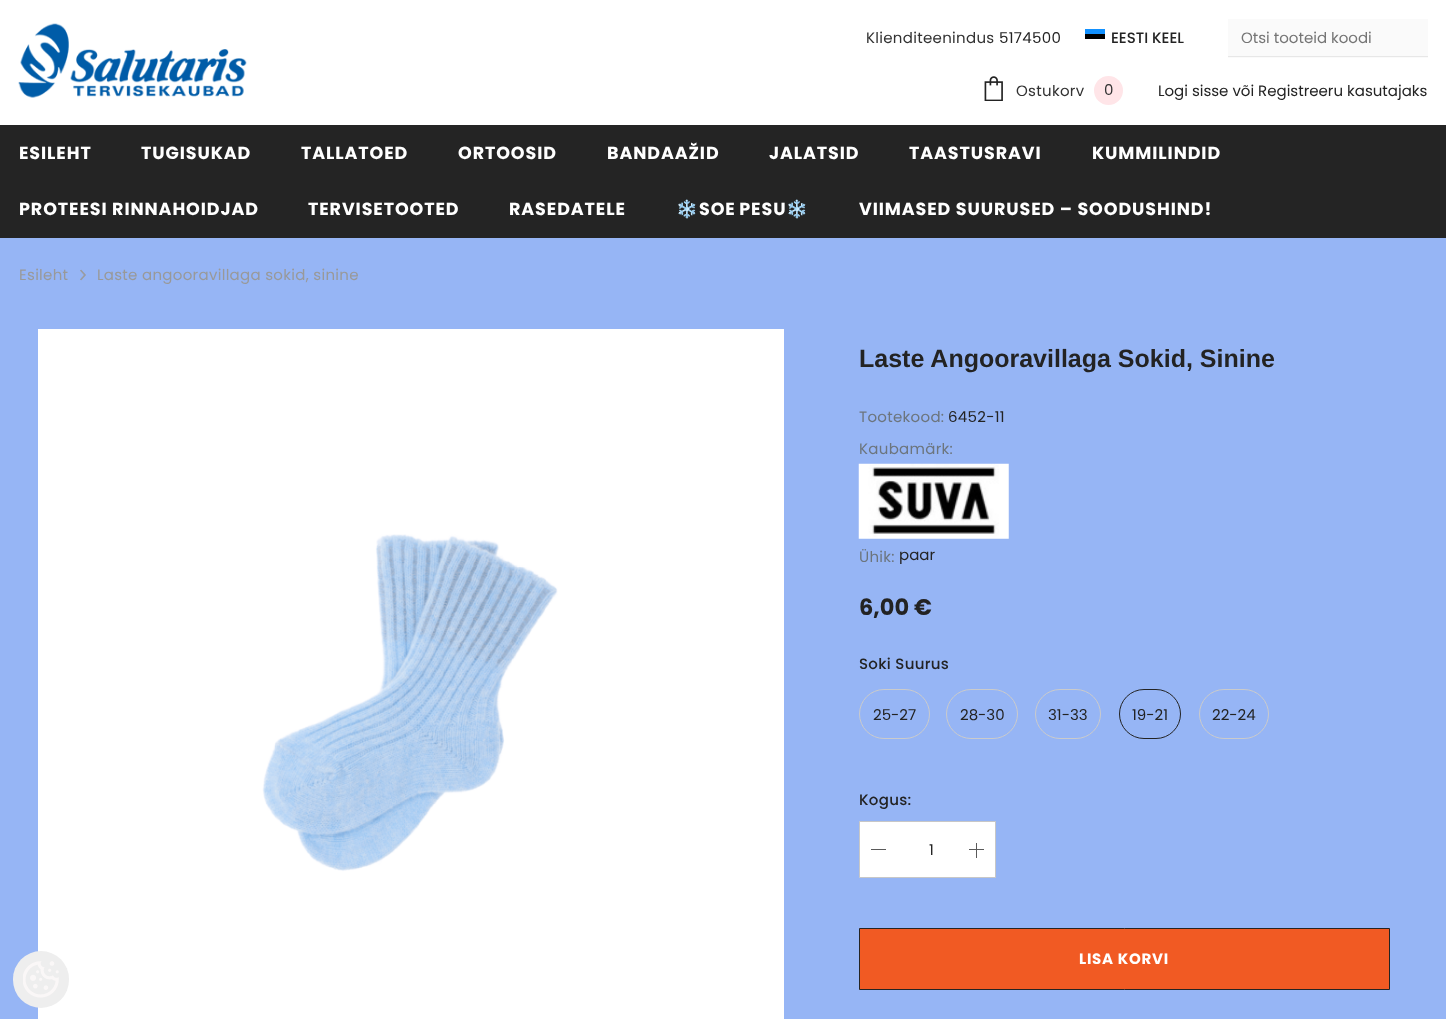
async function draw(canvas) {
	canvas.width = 1446;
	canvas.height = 1019;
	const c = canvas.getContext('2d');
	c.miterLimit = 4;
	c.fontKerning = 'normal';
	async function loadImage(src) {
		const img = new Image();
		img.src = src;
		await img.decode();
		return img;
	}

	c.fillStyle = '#96b5f5';
	c.fillRect(0, 0, 1446, 1019);
	c.fillStyle = '#fff';
	c.fillRect(0, 0, 1446, 125);
	c.drawImage(await loadImage('img1.png'), 18, 23, 229, 75);
	c.letterSpacing = '0.3px';
	c.font = '15px Poppins';
	c.fillStyle = '#323232';
	c.fillText('Klienditeenindus', 866, 43);
	c.fillStyle = '#232323';
	c.fillText('5174500', 999, 43);
	c.fillStyle = '#000';
	c.fillRect(1085, 34, 20, 5);
	c.fillStyle = '#1291ff';
	c.fillRect(1085, 29, 20, 5);
	c.letterSpacing = '0px';
	c.font = '500 15px Poppins';
	c.fillStyle = '#232323';
	c.fillText('EESTI KEEL', 1111, 43);
	c.fillStyle = '#fafafa';
	c.fillRect(1228, 19, 200, 39);
	c.fillStyle = '#e7e7e7';
	c.fillRect(1228, 56, 200, 1);
	c.font = '15px Poppins';
	c.fillStyle = '#757575';
	c.fillText('Otsi tooteid koodi', 1241, 43);
	c.drawImage(await loadImage('img2.png'), 984, 76, 19, 25);
	c.letterSpacing = '0.3px';
	c.fillStyle = '#323232';
	c.fillText('Ostukorv', 1016, 96);
	c.fillStyle = '#ffe5e8';
	c.beginPath();
	c.arc(1108.5, 90.5, 14.5, 0, 2 * Math.PI);
	c.fill();
	c.fillStyle = '#323232';
	c.fillText('0', 1104, 95);
	c.letterSpacing = '0px';
	c.fillStyle = '#232323';
	c.fillText('Logi sisse või Registreeru kasutajaks', 1158, 96);
	c.fillStyle = '#242424';
	c.fillRect(0, 125, 1446, 113);
	c.letterSpacing = '0.9px';
	c.font = 'bold 17.5px Poppins';
	c.fillStyle = '#fff';
	for (const [text, x, y] of [
		['ESILEHT', 19, 159],
		['TUGISUKAD', 141, 159],
		['TALLATOED', 301, 159],
		['ORTOOSID', 458, 159],
		['BANDAAŽID', 607, 159],
		['JALATSID', 769, 159],
		['TAASTUSRAVI', 909, 159],
		['KUMMILINDID', 1092, 159],
		['PROTEESI RINNAHOIDJAD', 19, 215],
		['TERVISETOOTED', 308, 215],
		['RASEDATELE', 509, 215],
	]) {
		c.fillText(text, x, y);
	}
	c.font = 'bold 17.5px Noto Color Emoji';
	c.fillText('❄️', 676, 215);
	c.wordSpacing = '-1px';
	c.font = 'bold 17.5px Poppins';
	c.fillText('SOE PESU', 699, 215);
	c.wordSpacing = '0px';
	c.font = 'bold 17.5px Noto Color Emoji';
	c.fillText('❄️', 786, 215);
	c.font = 'bold 17.5px Poppins';
	c.fillText('VIIMASED SUURUSED – SOODUSHIND!', 859, 215);
	c.letterSpacing = '0.3px';
	c.font = '15px Poppins';
	c.fillStyle = '#999';
	c.fillText('Esileht', 19, 280);
	c.drawImage(await loadImage('img3.png'), 80, 269, 6, 12);
	c.fillText('Laste angooravillaga sokid, sinine', 97, 280);
	c.drawImage(await loadImage('img4.png'), 38, 329, 746, 690);
	c.letterSpacing = '0px';
	c.font = 'bold 25px Liberation Sans';
	c.fillStyle = '#232323';
	c.fillText('Laste Angooravillaga Sokid, Sinine', 859, 367);
	c.letterSpacing = '0.3px';
	c.font = '15px Poppins';
	c.fillStyle = '#6c757d';
	c.fillText('Tootekood:', 859, 422);
	c.fillStyle = '#232323';
	c.fillText('6452-11', 948, 422);
	c.fillStyle = '#6c757d';
	c.fillText('Kaubamärk:', 859, 454);
	c.drawImage(await loadImage('img5.png'), 858, 463, 151, 76);
	c.fillText('Ühik:', 859, 562);
	c.letterSpacing = '0px';
	c.fillStyle = '#232323';
	c.fillText('paar', 899, 560);
	c.font = 'bold 22.5px Poppins';
	c.fillText('6,00 €', 859, 615);
	c.letterSpacing = '0.3px';
	c.font = '500 15px Poppins';
	c.fillText('Soki Suurus', 859, 669);
	c.beginPath();
	c.roundRect(859.5, 689.5, 70, 49, 24.5);
	c.strokeStyle = '#cbcbcb';
	c.stroke();
	c.letterSpacing = '0px';
	c.font = '15px Poppins';
	c.fillText('25-27', 873, 720);
	c.beginPath();
	c.roundRect(946.5, 689.5, 71, 49, 24.5);
	c.stroke();
	c.fillText('28-30', 960, 720);
	c.beginPath();
	c.roundRect(1035.5, 689.5, 65, 49, 24.5);
	c.stroke();
	c.fillText('31-33', 1048, 720);
	c.beginPath();
	c.roundRect(1119.5, 689.5, 61, 49, 24.5);
	c.strokeStyle = '#232323';
	c.stroke();
	c.fillText('19-21', 1132, 720);
	c.beginPath();
	c.roundRect(1199.5, 689.5, 69, 49, 24.5);
	c.strokeStyle = '#cbcbcb';
	c.stroke();
	c.fillText('22-24', 1212, 720);
	c.letterSpacing = '0.3px';
	c.font = '500 15px Poppins';
	c.fillText('Kogus:', 859, 805);
	c.fillStyle = '#fff';
	c.beginPath();
	c.rect(859.5, 821.5, 136, 56);
	c.fill();
	c.strokeStyle = '#c7c7c7';
	c.stroke();
	c.fillStyle = '#5a5a5a';
	c.fillRect(871, 849, 15, 1);
	c.font = '15px Poppins';
	c.fillStyle = '#232323';
	c.fillText('1', 929, 855);
	c.fillStyle = '#5a5a5a';
	c.fillRect(969, 849, 15, 1);
	c.fillRect(976, 843, 1, 15);
	c.fillStyle = '#f15a23';
	c.beginPath();
	c.rect(859.5, 928.5, 530, 61);
	c.fill();
	c.strokeStyle = '#242424';
	c.stroke();
	c.letterSpacing = '0.75px';
	c.font = 'bold 15px Poppins';
	c.fillStyle = '#fff';
	c.fillText('LISA KORVI', 1079, 964);
	c.fillStyle = '#eee';
	c.beginPath();
	c.roundRect(13, 951, 56, 57, 28);
	c.fill();
	c.drawImage(await loadImage('img6.png'), 23, 961, 36, 37);
}

draw(document.querySelector('canvas'));
